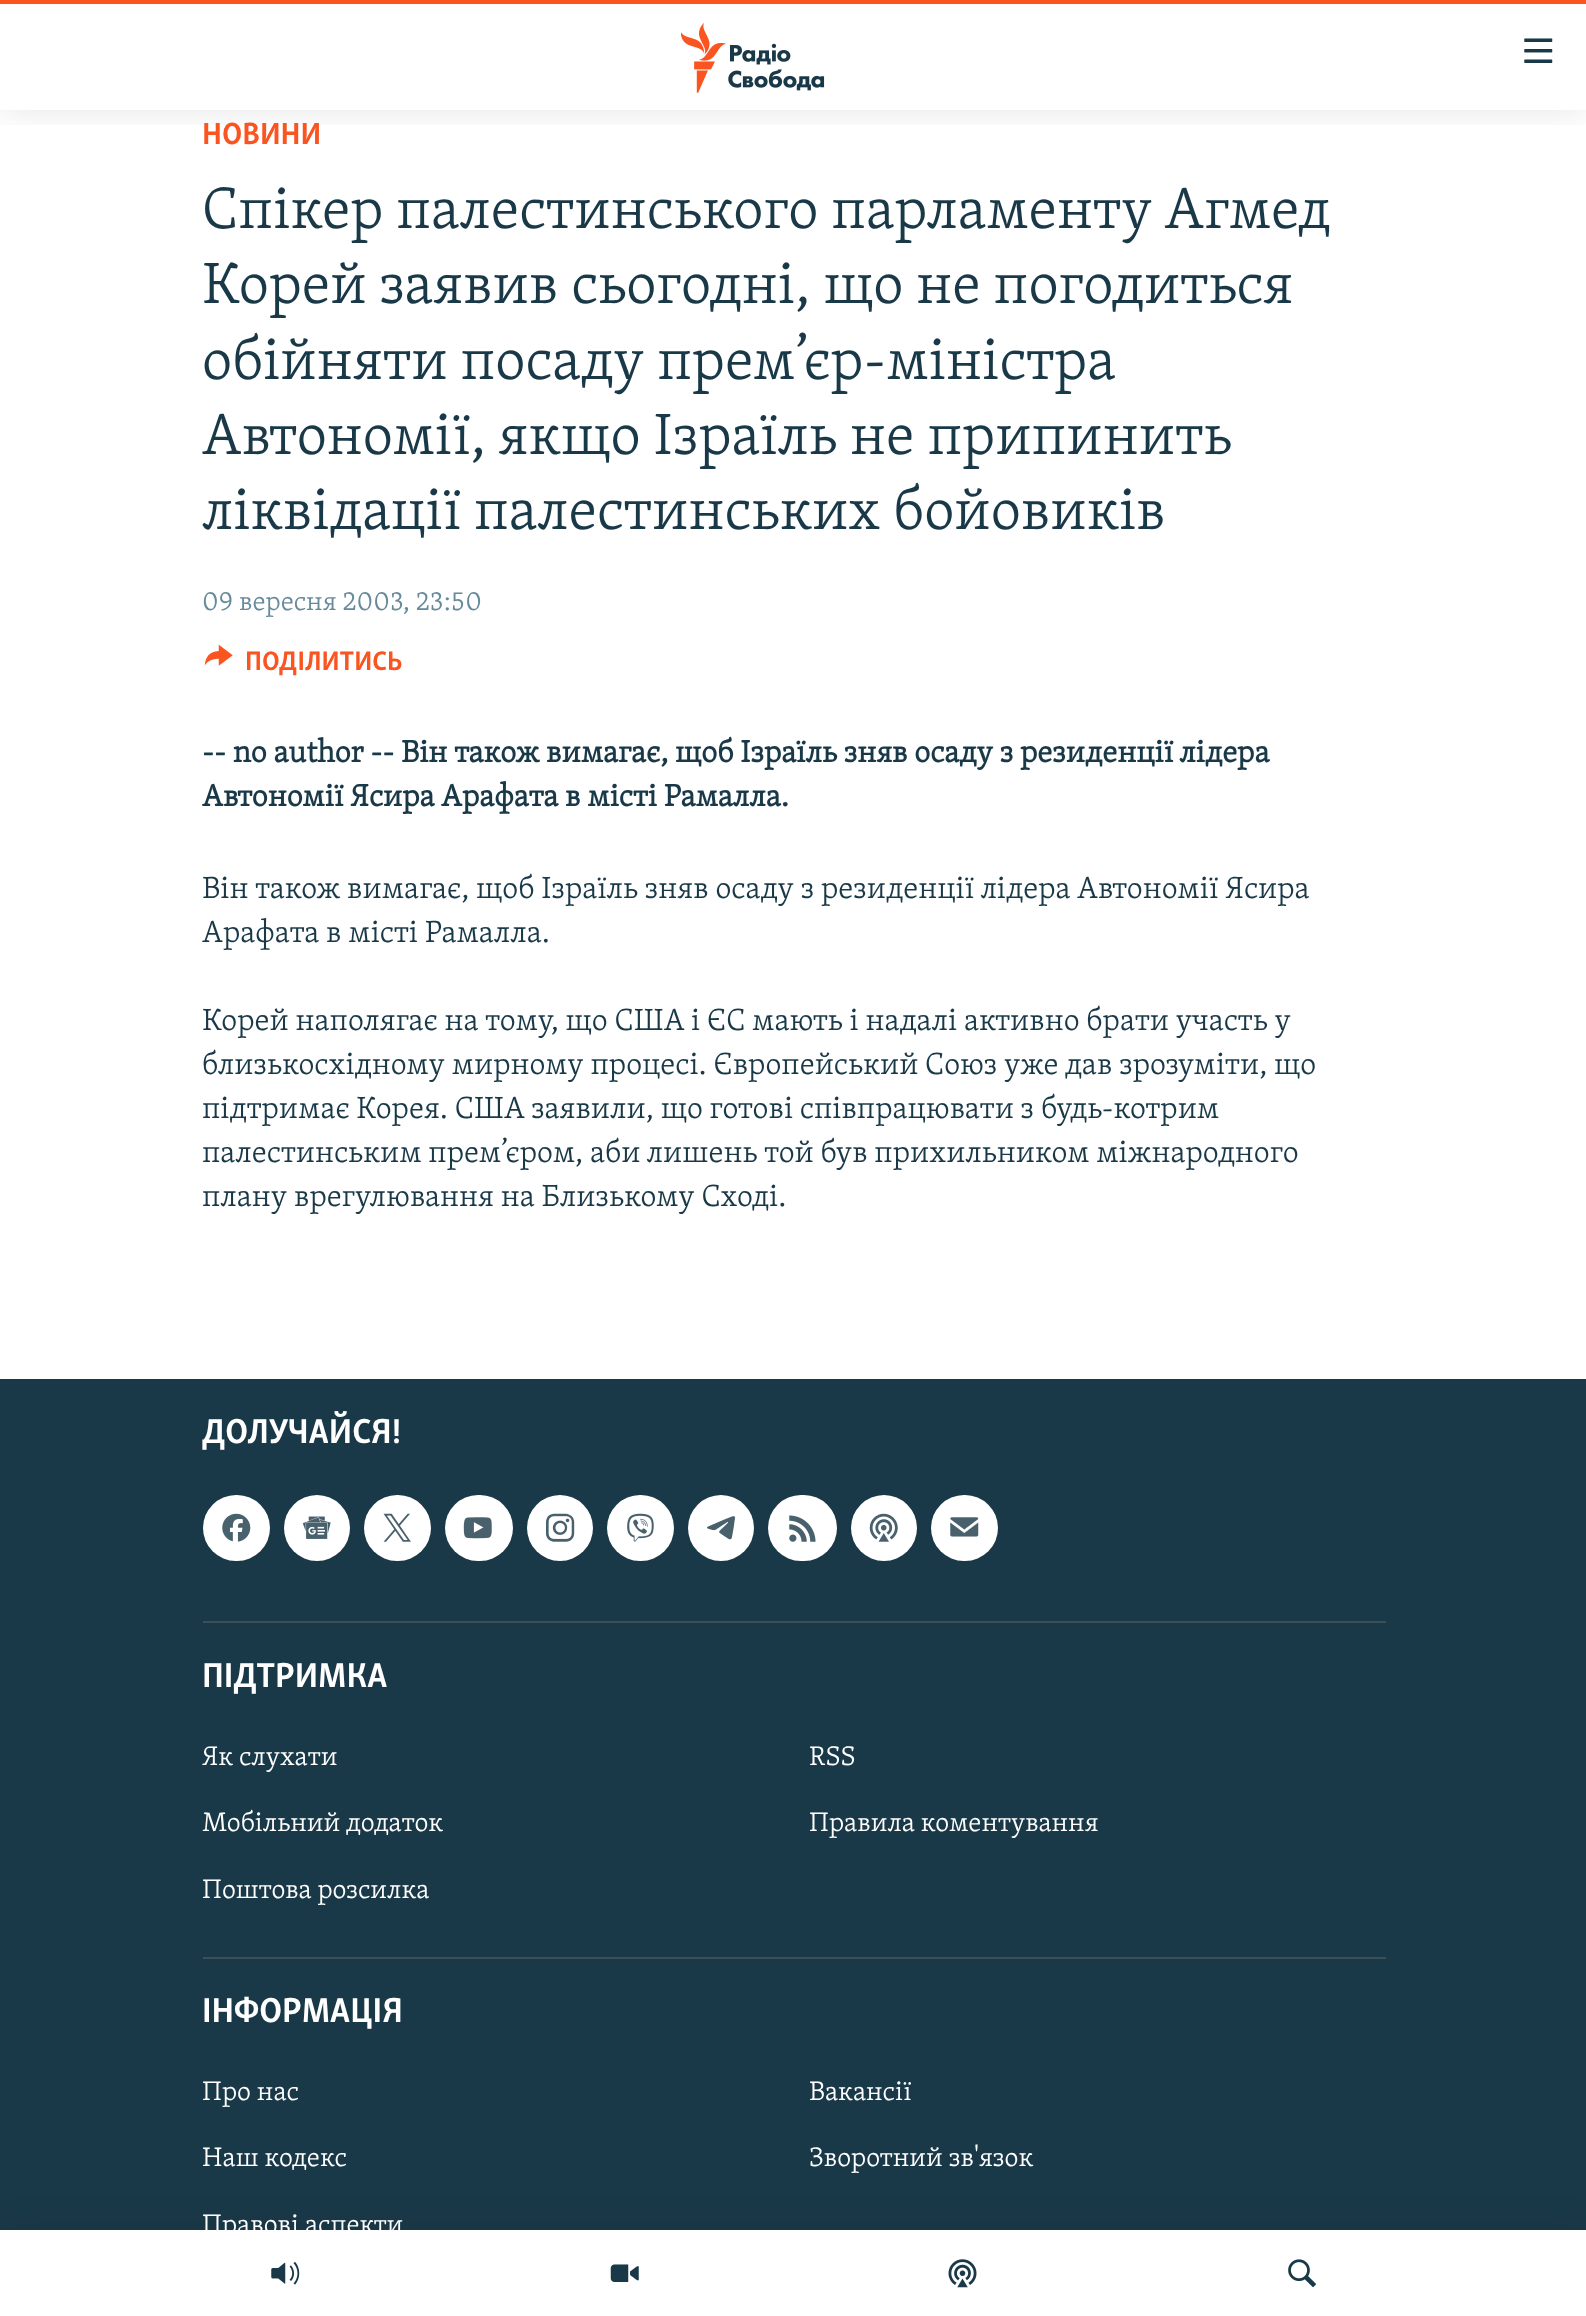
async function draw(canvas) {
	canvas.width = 1586;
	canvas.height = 2316;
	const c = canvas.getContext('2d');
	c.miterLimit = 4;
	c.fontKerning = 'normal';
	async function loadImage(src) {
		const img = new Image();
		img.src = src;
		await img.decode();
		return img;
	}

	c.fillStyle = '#fff';
	c.fillRect(0, 0, 1586, 2316);
	c.save();
	c.beginPath();
	c.rect(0, 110, 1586, 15);
	c.clip();
	c.fillStyle = '#0000001a';
	c.filter = 'blur(17.5px)';
	c.beginPath();
	c.rect(0, 0, 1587, 110);
	c.fill();
	c.filter = 'none';
	c.restore();
	c.fillStyle = '#fa5420';
	c.fillRect(0, 0, 1586, 4);
	c.drawImage(await loadImage('img1.png'), 681, 23, 144, 70);
	c.drawImage(await loadImage('img2.png'), 1524, 38, 29, 25);
	c.fillStyle = '#1a3948';
	c.fillRect(0, 1379, 1586, 851);
	c.fillStyle = '#0000001a';
	c.filter = 'blur(17.5px)';
	c.beginPath();
	c.rect(0, 2230, 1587, 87);
	c.fill();
	c.filter = 'none';
	c.fillStyle = '#fff';
	c.fillRect(0, 2230, 1586, 86);
	c.drawImage(await loadImage('img3.png'), 271, 2262, 29, 23);
	c.drawImage(await loadImage('img4.png'), 610, 2264, 29, 18);
	c.drawImage(await loadImage('img5.png'), 948, 2259, 29, 29);
	c.drawImage(await loadImage('img6.png'), 1288, 2259, 28, 29);
	c.font = 'bold 31.5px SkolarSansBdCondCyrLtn';
	c.fillStyle = '#fa5420';
	c.fillText('НОВИНИ', 202, 144);
	c.font = '300 59.8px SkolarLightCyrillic';
	c.fillStyle = '#1a3948';
	for (const [text, x, y] of [
		['Спікер палестинського парламенту Агмед', 202, 228],
		['Корей заявив сьогодні, що не погодиться', 202, 303],
		['обійняти посаду прем’єр-міністра', 202, 379],
		['Автономії, якщо Ізраїль не припинить', 202, 454],
		['ліквідації палестинських бойовиків', 202, 529],
	]) {
		c.fillText(text, x, y);
	}
	c.font = '300 27.5px SkolarLightCyrillic';
	c.fillStyle = '#678a9b';
	c.fillText('09 вересня 2003, 23:50', 202, 610);
	c.drawImage(await loadImage('img7.png'), 204, 644, 29, 22);
	c.font = 'bold 27.5px SkolarSansBdCondCyrLtn';
	c.fillStyle = '#fa5420';
	c.fillText('ПОДІЛИТИСЬ', 245, 670);
	c.font = 'bold 31.5px SkolarLightCyrillic';
	c.fillStyle = '#1a3948';
	c.fillText('-- no author -- Він також вимагає, щоб Ізраїль зняв осаду з резиденції лідера', 202, 762);
	c.fillText('Автономії Ясира Арафата в місті Рамалла.', 202, 806);
	c.font = '300 31.5px SkolarLightCyrillic';
	for (const [text, x, y] of [
		['Він також вимагає, щоб Ізраїль зняв осаду з резиденції лідера Автономії Ясира', 202, 898],
		['Арафата в місті Рамалла.', 202, 942],
		['Корей наполягає на тому, що США і ЄС мають і надалі активно брати участь у', 202, 1030],
		['близькосхідному мирному процесі. Європейський Союз уже дав зрозуміти, що', 202, 1074],
		['підтримає Корея. США заявили, що готові співпрацювати з будь-котрим', 202, 1118],
		['палестинським прем’єром, аби лишень той був прихильником міжнародного', 202, 1162],
		['плану врегулювання на Близькому Сході.', 202, 1206],
	]) {
		c.fillText(text, x, y);
	}
	c.font = 'bold 35.5px SkolarSansBdCondCyrLtn';
	c.fillStyle = '#fff';
	c.fillText('ДОЛУЧАЙСЯ!', 202, 1443);
	c.beginPath();
	c.roundRect(203, 1495, 67, 66, 33);
	c.fill();
	c.drawImage(await loadImage('img8.png'), 222, 1513, 29, 29);
	c.beginPath();
	c.arc(317, 1528, 33, 0, 2 * Math.PI);
	c.fill();
	c.drawImage(await loadImage('img9.png'), 302, 1516, 29, 23);
	c.beginPath();
	c.roundRect(364, 1495, 67, 66, 33);
	c.fill();
	c.drawImage(await loadImage('img10.png'), 383, 1513, 28, 29);
	c.beginPath();
	c.roundRect(445, 1495, 68, 66, 33);
	c.fill();
	c.drawImage(await loadImage('img11.png'), 463, 1517, 29, 22);
	c.beginPath();
	c.arc(560, 1528, 33, 0, 2 * Math.PI);
	c.fill();
	c.drawImage(await loadImage('img12.png'), 546, 1513, 29, 29);
	c.beginPath();
	c.roundRect(607, 1495, 67, 66, 33);
	c.fill();
	c.drawImage(await loadImage('img13.png'), 627, 1513, 27, 29);
	c.beginPath();
	c.arc(721, 1528, 33, 0, 2 * Math.PI);
	c.fill();
	c.drawImage(await loadImage('img14.png'), 707, 1516, 28, 24);
	c.beginPath();
	c.roundRect(768, 1495, 69, 66, 33);
	c.fill();
	c.drawImage(await loadImage('img15.png'), 789, 1515, 27, 27);
	c.beginPath();
	c.arc(884, 1528, 33, 0, 2 * Math.PI);
	c.fill();
	c.drawImage(await loadImage('img16.png'), 869, 1513, 29, 29);
	c.beginPath();
	c.roundRect(931, 1495, 67, 66, 33);
	c.fill();
	c.drawImage(await loadImage('img17.png'), 950, 1517, 29, 20);
	c.fillStyle = '#3e4f57';
	c.fillRect(203, 1621, 1183, 2);
	c.fillStyle = '#fff';
	c.fillText('ПІДТРИМКА', 202, 1687);
	c.font = '300 27.5px SkolarLightCyrillic';
	for (const [text, x, y] of [
		['Як слухати', 202, 1765],
		['RSS', 809, 1765],
		['Мобільний додаток', 202, 1831],
		['Правила коментування', 809, 1831],
		['Поштова розсилка', 202, 1898],
	]) {
		c.fillText(text, x, y);
	}
	c.fillStyle = '#3e4f57';
	c.fillRect(203, 1957, 1183, 2);
	c.font = 'bold 35.5px SkolarSansBdCondCyrLtn';
	c.fillStyle = '#fff';
	c.fillText('ІНФОРМАЦІЯ', 202, 2022);
	c.font = '300 27.5px SkolarLightCyrillic';
	for (const [text, x, y] of [
		['Про нас', 202, 2100],
		['Вакансії', 809, 2100],
		['Наш кодекс', 202, 2166],
		['Зворотний зв\'язок', 809, 2166],
		['Правові аспекти', 202, 2233],
	]) {
		c.fillText(text, x, y);
	}
}

draw(document.querySelector('canvas'));
